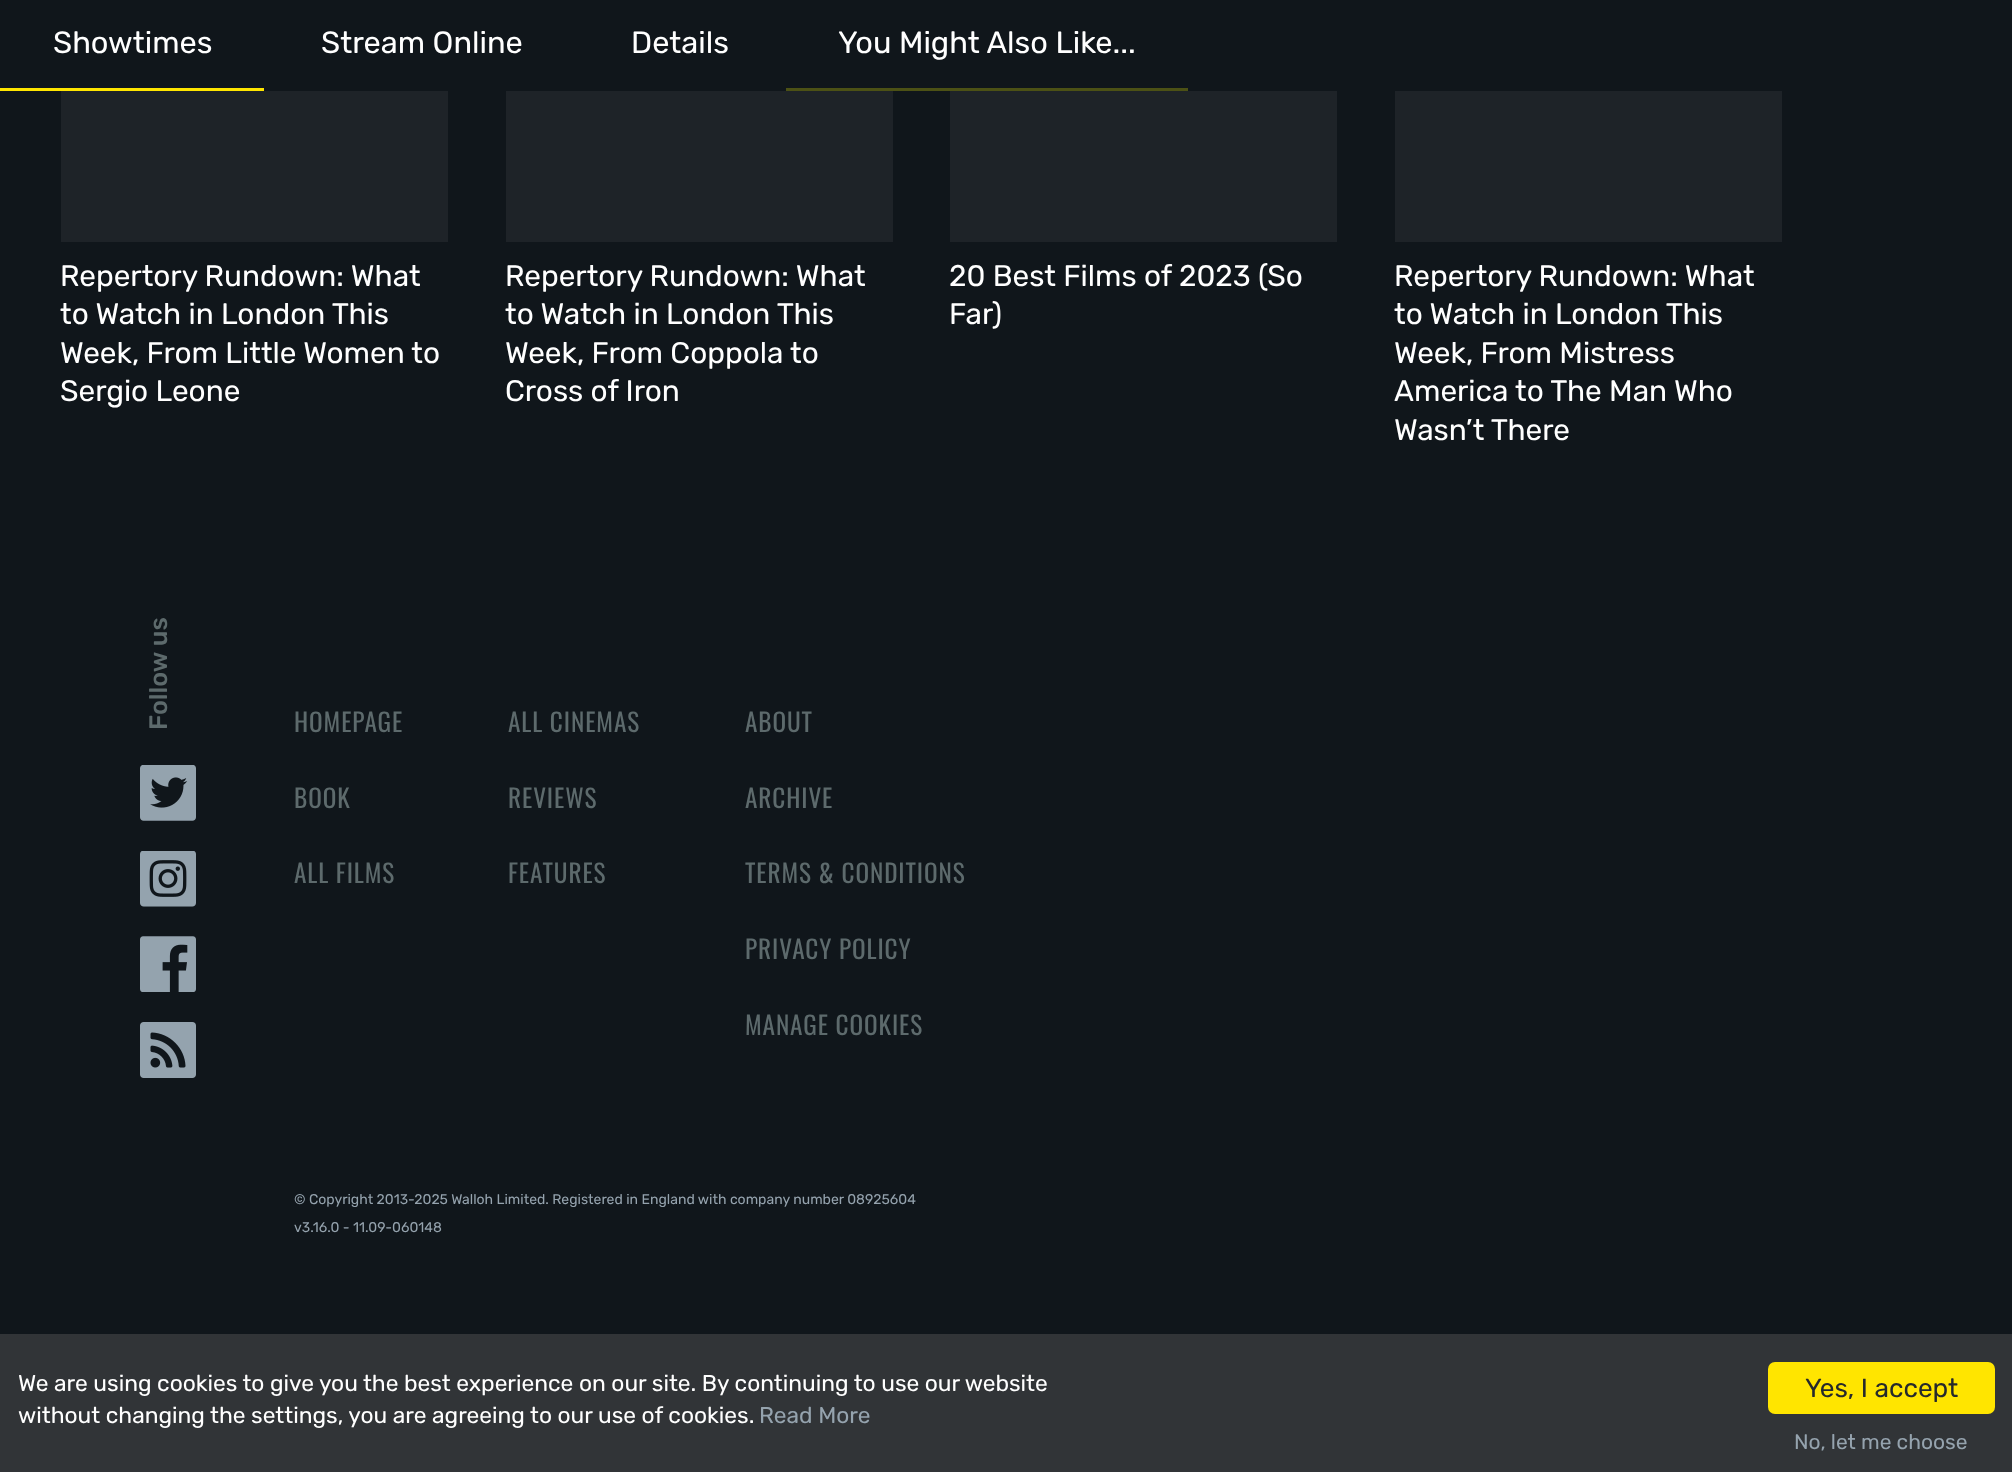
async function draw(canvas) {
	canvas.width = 2012;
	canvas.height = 1472;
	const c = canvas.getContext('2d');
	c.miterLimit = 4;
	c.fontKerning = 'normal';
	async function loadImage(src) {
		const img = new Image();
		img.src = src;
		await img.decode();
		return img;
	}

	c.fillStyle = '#10161b';
	c.fillRect(0, 0, 2012, 1472);
	c.fillStyle = '#ffe500';
	c.fillRect(0, 88, 264, 3);
	c.font = '30.75px Rubik';
	c.fillStyle = '#fff';
	for (const [text, x, y] of [
		['Showtimes', 53, 53],
		['Stream Online', 321, 53],
		['Details', 631, 53],
	]) {
		c.fillText(text, x, y);
	}
	c.fillStyle = '#4c5115';
	c.fillRect(786, 88, 402, 3);
	c.fillStyle = '#fff';
	c.fillText('You Might Also Like...', 838, 53);
	c.fillStyle = '#1e2328';
	c.fillRect(61, 91, 387, 151);
	c.font = '29.75px Rubik';
	c.fillStyle = '#fff';
	for (const [text, x, y] of [
		['Repertory Rundown: What', 60, 286],
		['to Watch in London This', 60, 324],
		['Week, From Little Women to', 60, 363],
		['Sergio Leone', 60, 401],
	]) {
		c.fillText(text, x, y);
	}
	c.fillStyle = '#1e2328';
	c.fillRect(506, 91, 387, 151);
	c.fillStyle = '#fff';
	for (const [text, x, y] of [
		['Repertory Rundown: What', 505, 286],
		['to Watch in London This', 505, 324],
		['Week, From Coppola to', 505, 363],
		['Cross of Iron', 505, 401],
	]) {
		c.fillText(text, x, y);
	}
	c.fillStyle = '#1e2328';
	c.fillRect(950, 91, 387, 151);
	c.fillStyle = '#fff';
	c.fillText('20 Best Films of 2023 (So', 949, 286);
	c.fillText('Far)', 949, 324);
	c.fillStyle = '#1e2328';
	c.fillRect(1395, 91, 387, 151);
	c.fillStyle = '#fff';
	for (const [text, x, y] of [
		['Repertory Rundown: What', 1394, 286],
		['to Watch in London This', 1394, 324],
		['Week, From Mistress', 1394, 363],
		['America to The Man Who', 1394, 401],
		['Wasn’t There', 1394, 440],
	]) {
		c.fillText(text, x, y);
	}
	c.font = '500 25.25px Rubik';
	c.fillStyle = '#5d6a6c';
	c.save();
	c.translate(167, 730);
	c.rotate(-90 * Math.PI / 180);
	c.fillText('Follow us', 0, 0);
	c.restore();
	c.drawImage(await loadImage('img1.png'), 140, 765, 56, 56);
	c.drawImage(await loadImage('img2.png'), 140, 851, 56, 56);
	c.drawImage(await loadImage('img3.png'), 140, 936, 56, 56);
	c.drawImage(await loadImage('img4.png'), 140, 1022, 56, 56);
	c.letterSpacing = '0.9px';
	c.font = '25.25px Oswald';
	for (const [text, x, y] of [
		['HOMEPAGE', 294, 732],
		['BOOK', 294, 808],
		['ALL FILMS', 294, 883],
		['ALL CINEMAS', 508, 732],
		['REVIEWS', 508, 808],
		['FEATURES', 508, 883],
		['ABOUT', 745, 732],
		['ARCHIVE', 745, 808],
		['TERMS & CONDITIONS', 745, 883],
		['PRIVACY POLICY', 745, 959],
		['MANAGE COOKIES', 745, 1035],
	]) {
		c.fillText(text, x, y);
	}
	c.letterSpacing = '0px';
	c.font = '14px Rubik';
	c.fillStyle = '#95a3ae';
	c.fillText('© Copyright 2013-2025 Walloh Limited. Registered in England with company number 08‍92‍56‍04', 294, 1204);
	c.fillText('v3.16.0 - 11.09-060148', 294, 1232);
	c.fillStyle = '#313437';
	c.fillRect(0, 1334, 2012, 138);
	c.font = '22.75px Rubik';
	c.fillStyle = '#fff';
	c.fillText('We are using cookies to give you the best experience on our site. By continuing to use our website', 18, 1391);
	c.fillText('without changing the settings, you are agreeing to our use of cookies.', 18, 1423);
	c.fillStyle = '#95a3ae';
	c.fillText('Read More', 759, 1423);
	c.fillStyle = '#ffe500';
	c.beginPath();
	c.roundRect(1768, 1362, 227, 52, 7);
	c.fill();
	c.font = '26.25px Rubik';
	c.fillStyle = '#26292c';
	c.fillText('Yes, I accept', 1805, 1397);
	c.font = '21px Rubik';
	c.fillStyle = '#95a3ae';
	c.fillText('No, let me choose', 1794, 1449);
}

draw(document.querySelector('canvas'));
